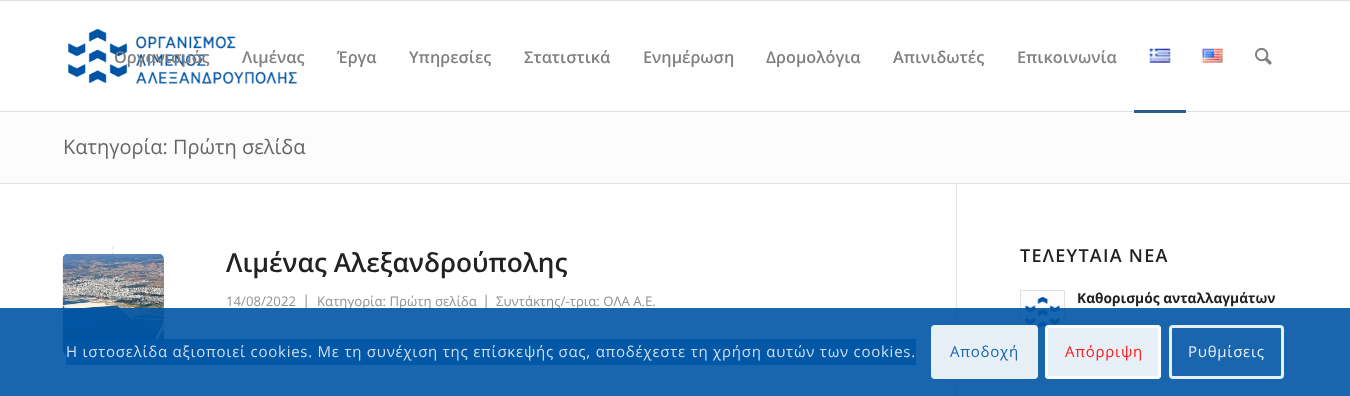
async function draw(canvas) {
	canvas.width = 1350;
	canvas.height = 396;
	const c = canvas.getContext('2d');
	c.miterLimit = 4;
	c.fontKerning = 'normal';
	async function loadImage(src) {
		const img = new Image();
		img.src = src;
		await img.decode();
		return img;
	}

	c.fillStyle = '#fff';
	c.fillRect(0, 0, 1350, 396);
	c.fillStyle = '#e1e1e1';
	c.fillRect(0, 0, 1350, 1);
	c.fillRect(0, 111, 1350, 1);
	c.drawImage(await loadImage('img1.png'), 68, 28, 230, 56);
	c.font = '600 16.25px Open Sans';
	c.fillStyle = '#808080';
	for (const [text, x, y] of [
		['Οργανισμός', 114, 63],
		['Λιμένας', 242, 63],
		['Έργα', 337, 63],
		['Υπηρεσίες', 409, 63],
		['Στατιστικά', 524, 63],
		['Ενημέρωση', 643, 63],
		['Δρομολόγια', 766, 63],
		['Απινιδωτές', 893, 63],
		['Επικοινωνία', 1017, 63],
	]) {
		c.fillText(text, x, y);
	}
	c.drawImage(await loadImage('img2.png'), 1149, 48, 22, 15);
	c.fillStyle = '#2d5c88';
	c.fillRect(1134, 110, 52, 3);
	c.drawImage(await loadImage('img3.png'), 1201, 48, 22, 15);
	c.drawImage(await loadImage('img4.png'), 1255, 47, 17, 18);
	c.fillStyle = '#fcfcfc';
	c.fillRect(0, 113, 1350, 70);
	c.font = '20px Open Sans';
	c.fillStyle = '#666';
	c.fillText('Κατηγορία: Πρώτη σελίδα', 63, 154);
	c.fillStyle = '#e1e1e1';
	c.fillRect(0, 183, 1350, 1);
	c.fillRect(956, 184, 1, 212);
	c.beginPath();
	c.moveTo(113, 246);
	c.lineTo(113, 355);
	c.strokeStyle = '#e1e1e1';
	c.lineWidth = 1.2;
	c.setLineDash([3.75, 2.42]);
	c.stroke();
	c.font = '600 26.25px Open Sans';
	c.fillStyle = '#222';
	c.fillText('Λιμένας Αλεξανδρούπολης', 226, 272);
	c.font = '13.2px Open Sans';
	c.fillStyle = '#919191';
	c.fillText('14/08/2022', 226, 306);
	c.font = '15px Open Sans';
	c.fillText('|', 302, 306);
	c.font = '13.2px Open Sans';
	c.fillText('Κατηγορία: Πρώτη σελίδα', 317, 306);
	c.font = '15px Open Sans';
	c.fillText('|', 482, 306);
	c.font = '13.2px Open Sans';
	c.fillText('Συντάκτης/-τρια: ΟΛΑ Α.Ε.', 496, 306);
	c.beginPath();
	c.roundRect(63, 254, 101, 101, 5);
	c.fill();
	c.drawImage(await loadImage('img5.png'), 62, 254, 102, 101);
	c.letterSpacing = '1.25px';
	c.font = '600 18px Open Sans';
	c.fillStyle = '#222';
	c.fillText('ΤΕΛΕΥΤΑΙΑ ΝΕΑ', 1020, 262);
	c.fillStyle = '#fcfcfc';
	c.beginPath();
	c.rect(1020.5, 290.5, 44, 44);
	c.fill();
	c.lineWidth = 1;
	c.setLineDash([]);
	c.stroke();
	c.drawImage(await loadImage('img6.png'), 1025, 296, 35, 33);
	c.letterSpacing = '0px';
	c.font = 'bold 13.75px Open Sans';
	c.fillStyle = '#222';
	c.fillText('Καθορισμός ανταλλαγμάτων', 1077, 303);
	c.fillStyle = '#0055a5e6';
	c.fillRect(0, 308, 1350, 88);
	c.fillRect(66, 339, 850, 26);
	c.letterSpacing = '0.75px';
	c.font = '15px Open Sans';
	c.fillStyle = '#cfdfee';
	c.fillText('Η ιστοσελίδα αξιοποιεί cookies. Με τη συνέχιση της επίσκεψής σας, αποδέχεστε τη χρήση αυτών των cookies.', 66, 357);
	c.fillStyle = '#ffffffe6';
	c.beginPath();
	c.roundRect(931, 325, 107, 54, 4);
	c.fill();
	c.fillStyle = '#1764ad';
	c.fillText('Αποδοχή', 950, 357);
	c.fillStyle = '#ffffffe6';
	c.beginPath();
	c.roundRect(1045, 325, 116, 54, 4);
	c.fill();
	c.beginPath();
	c.roundRect(1046.5, 326.5, 113, 51, 2.5);
	c.strokeStyle = '#ffffffe6';
	c.lineWidth = 3;
	c.stroke();
	c.fillStyle = '#fd1819';
	c.fillText('Απόρριψη', 1065, 357);
	c.beginPath();
	c.roundRect(1170.5, 326.5, 112, 51, 2.5);
	c.stroke();
	c.fillStyle = '#e8eff7';
	c.fillText('Ρυθμίσεις', 1188, 357);
}

draw(document.querySelector('canvas'));
